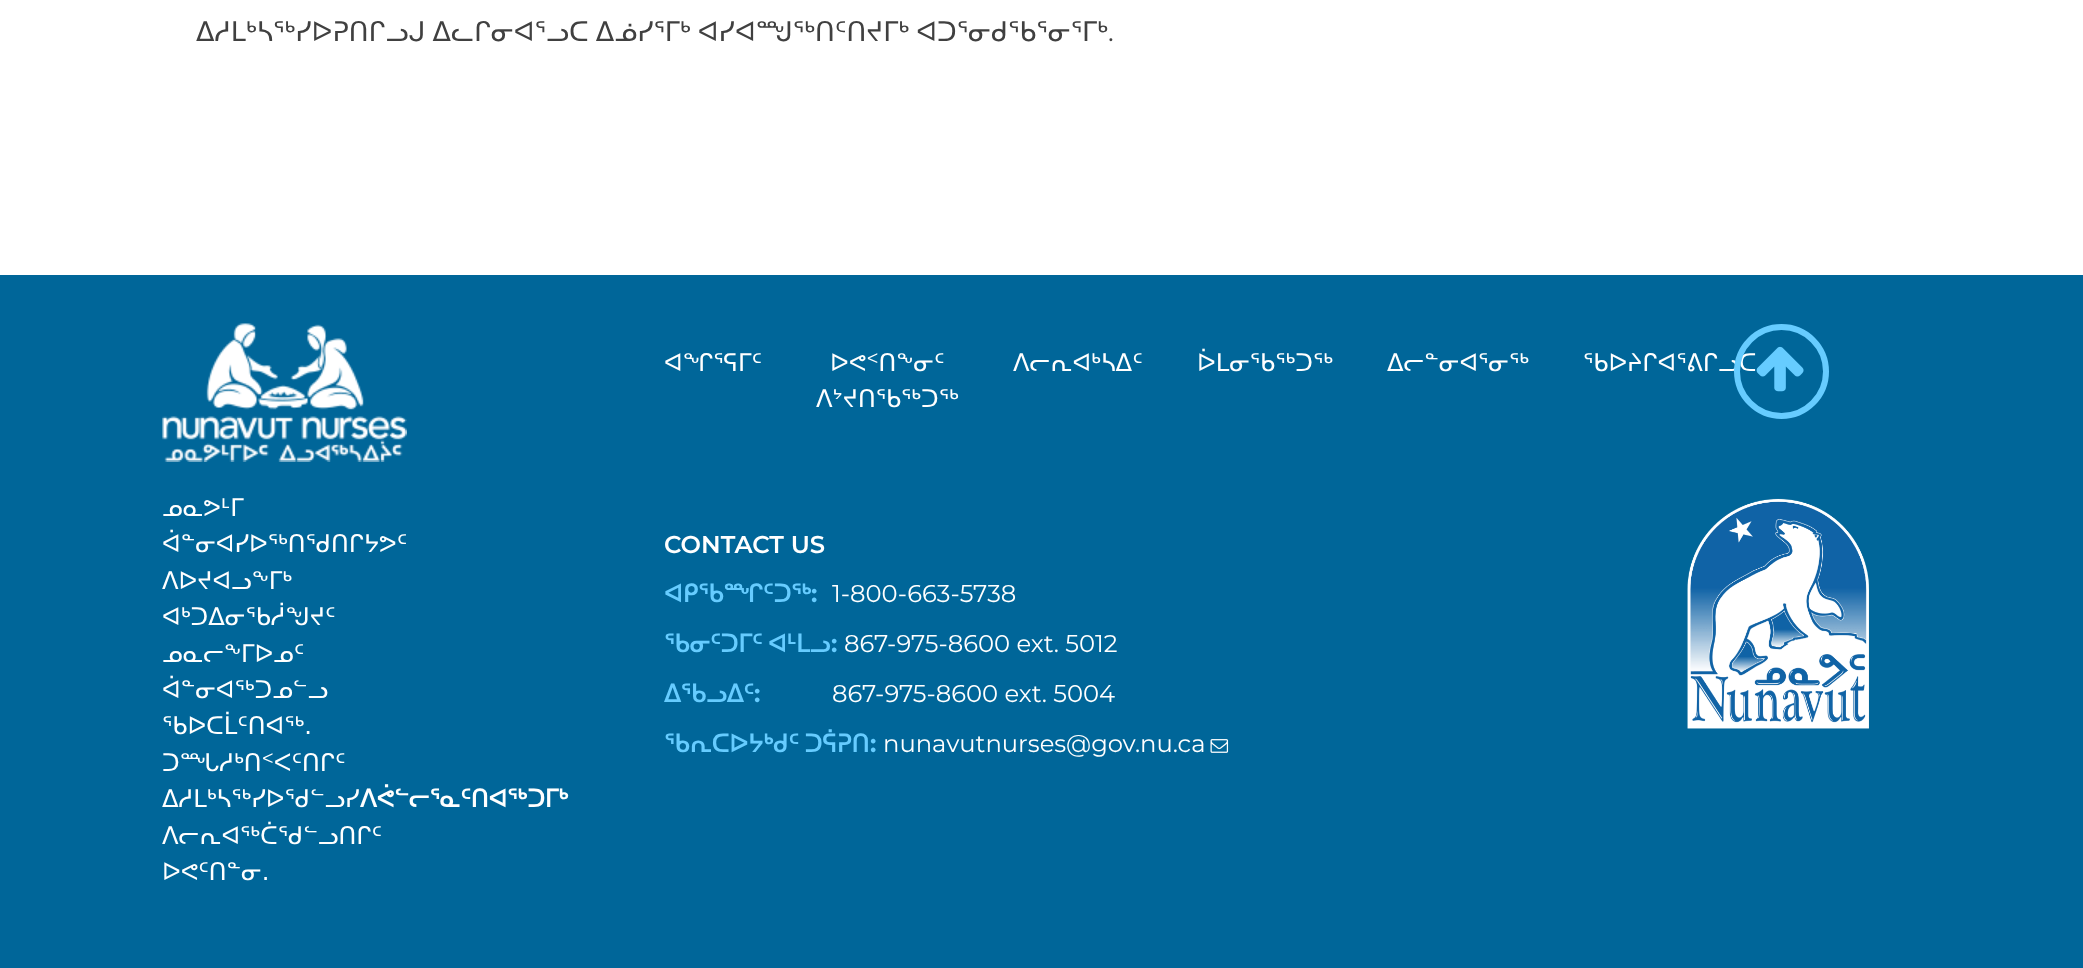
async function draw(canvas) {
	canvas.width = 2083;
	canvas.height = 968;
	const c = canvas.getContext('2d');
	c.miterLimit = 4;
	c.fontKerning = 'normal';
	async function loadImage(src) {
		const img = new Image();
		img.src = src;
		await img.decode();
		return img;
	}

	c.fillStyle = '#fff';
	c.fillRect(0, 0, 2083, 968);
	c.wordSpacing = '-1.5px';
	c.font = '27px DejaVu Sans';
	c.fillStyle = '#404040';
	c.fillText('ᐃᓱᒪᒃᓴᖅᓯᐅᕈᑎᒋᓗᒍ ᐃᓚᒋᓂᐊᕐᓗᑕ ᐃᓅᓯᕐᒥᒃ ᐊᓯᐊᙳᖅᑎᑦᑎᔪᒥᒃ ᐊᑐᕐᓂᑯᖃᕐᓂᕐᒥᒃ', 196, 41);
	c.wordSpacing = '0px';
	c.font = '27px Montserrat';
	c.fillText('.', 1108, 41);
	c.fillStyle = '#069';
	c.fillRect(0, 275, 2083, 693);
	c.font = '24.25px DejaVu Sans';
	c.fillStyle = '#fff';
	for (const [text, x, y] of [
		['ᐊᖏᕐᕋᒥᑦ', 664, 371],
		['ᐅᕙᑉᑎᖕᓂᑦ', 830, 371],
		['ᐱᔾᔪᑎᖃᖅᑐᖅ', 816, 407],
		['ᐱᓕᕆᐊᒃᓴᐃᑦ', 1013, 371],
		['ᐆᒪᓂᖃᖅᑐᖅ', 1197, 371],
		['ᐃᓕᓐᓂᐊᕐᓂᖅ', 1387, 371],
		['ᖃᐅᔨᒋᐊᕐᕕᒋᓗᑕ', 1583, 371],
	]) {
		c.fillText(text, x, y);
	}
	c.beginPath();
	c.arc(1781.5, 371.5, 44.5, 0, 2 * Math.PI);
	c.strokeStyle = '#6cf';
	c.lineWidth = 6;
	c.stroke();
	c.drawImage(await loadImage('img1.png'), 1756, 346, 48, 46);
	c.drawImage(await loadImage('img2.png'), 162, 323, 245, 139);
	for (const [text, x, y] of [
		['ᓄᓇᕗᒻᒥ', 162, 516],
		['ᐋᓐᓂᐊᓯᐅᖅᑎᖁᑎᒋᔭᕗᑦ', 162, 552],
		['ᐱᐅᔪᐊᓗᖕᒥᒃ', 162, 589],
		['ᐊᒃᑐᐃᓂᖃᓲᖑᔪᑦ', 162, 625],
		['ᓄᓇᓕᖕᒥᐅᓄᑦ', 162, 662],
		['ᐋᓐᓂᐊᖅᑐᓄᓪᓗ', 162, 698],
		['ᖃᐅᑕᒫᑦᑎᐊᖅ.', 162, 734],
		['ᑐᙵᓱᒃᑎᑉᐸᑦᑎᒋᑦ', 162, 771],
		['ᐃᓱᒪᒃᓴᖅᓯᐅᖁᓪᓗᓯ', 162, 807],
	]) {
		c.fillText(text, x, y);
	}
	c.font = 'bold 24.25px DejaVu Sans';
	c.fillText('ᐱᕚᓪᓕᕐᓇᑦᑎᐊᖅᑐᒥᒃ', 360, 807);
	c.font = '24.25px DejaVu Sans';
	c.fillText('ᐱᓕᕆᐊᖅᑖᖁᓪᓗᑎᒋᑦ', 162, 844);
	c.fillText('ᐅᕙᑦᑎᓐᓂ.', 162, 880);
	c.font = '600 24.25px Montserrat';
	c.fillText('CONTACT US', 664, 553);
	c.font = 'bold 24.25px DejaVu Sans';
	c.fillStyle = '#6cf';
	c.fillText('ᐊᑭᖃᙱᑦᑐᖅ', 664, 602);
	c.font = 'bold 24.25px Montserrat';
	c.fillText(':', 811, 602);
	c.font = '24.25px Montserrat';
	c.fillStyle = '#fff';
	c.fillText('1-800-663-5738', 832, 602);
	c.wordSpacing = '-2px';
	c.font = 'bold 24.25px DejaVu Sans';
	c.fillStyle = '#6cf';
	c.fillText('ᖃᓂᑦᑐᒥᑦ ᐊᒻᒪᓗ', 664, 652);
	c.wordSpacing = '0px';
	c.font = 'bold 24.25px Montserrat';
	c.fillText(':', 831, 652);
	c.font = '24.25px Montserrat';
	c.fillStyle = '#fff';
	c.fillText('867-975-8600 ext. 5012', 844, 652);
	c.font = 'bold 24.25px DejaVu Sans';
	c.fillStyle = '#6cf';
	c.fillText('ᐃᖃᓗᐃᑦ', 664, 702);
	c.font = 'bold 24.25px Montserrat';
	c.fillText(':', 754, 702);
	c.font = '24.25px Montserrat';
	c.fillStyle = '#fff';
	c.fillText('867-975-8600 ext. 5004', 832, 702);
	c.wordSpacing = '-2px';
	c.font = 'bold 24.25px DejaVu Sans';
	c.fillStyle = '#6cf';
	c.fillText('ᖃᕆᑕᐅᔭᒃᑯᑦ ᑐᕌᕈᑎ', 664, 752);
	c.wordSpacing = '0px';
	c.font = 'bold 24.25px Montserrat';
	c.fillText(':', 870, 752);
	c.font = '24.25px Montserrat';
	c.fillStyle = '#fff';
	c.fillText('nunavutnurses@gov.nu.ca', 883, 752);
	c.drawImage(await loadImage('img3.png'), 1210, 739, 19, 14);
	c.drawImage(await loadImage('img4.png'), 1687, 498, 182, 231);
}

draw(document.querySelector('canvas'));
